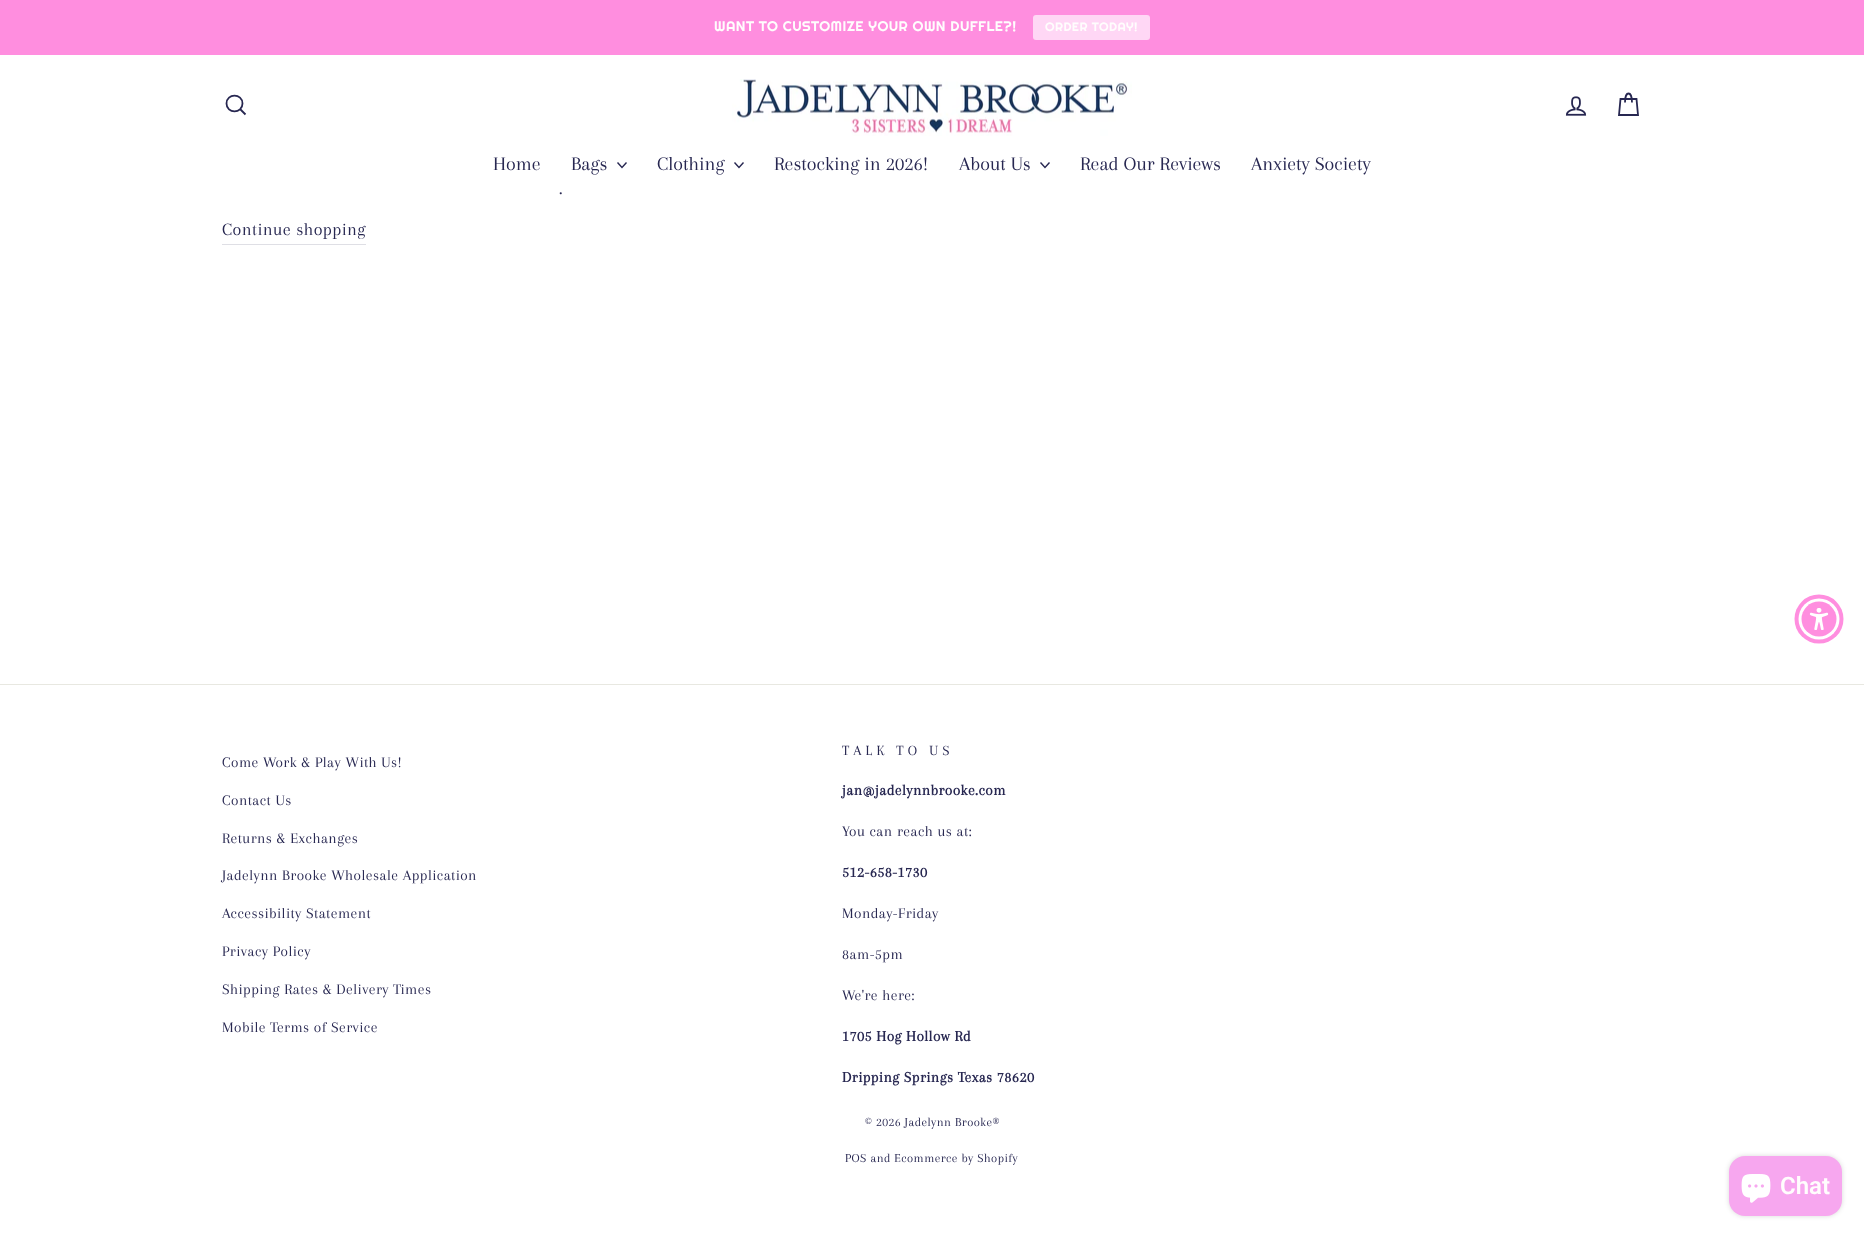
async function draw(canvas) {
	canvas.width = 1864;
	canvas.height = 1237;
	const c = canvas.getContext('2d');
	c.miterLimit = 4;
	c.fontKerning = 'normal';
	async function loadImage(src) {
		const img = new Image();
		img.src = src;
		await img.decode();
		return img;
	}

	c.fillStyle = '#fff';
	c.fillRect(0, 0, 1864, 1237);
	c.fillStyle = '#00000033';
	c.filter = 'blur(0.5px)';
	c.beginPath();
	c.rect(0, 54, 1864, 135);
	c.fill();
	c.filter = 'none';
	c.fillStyle = '#ff8edf';
	c.fillRect(0, 0, 1864, 55);
	c.letterSpacing = '0.45px';
	c.font = '14px Righteous';
	c.fillStyle = '#fffdfd';
	c.fillText('WANT TO CUSTOMIZE YOUR OWN DUFFLE?!', 714, 31);
	c.fillStyle = '#ffd7f5';
	c.beginPath();
	c.roundRect(1033, 15, 117, 25, 3);
	c.fill();
	c.font = '12.25px Righteous';
	c.fillStyle = '#fffdfd';
	c.fillText('ORDER TODAY!', 1045, 31);
	c.fillStyle = '#fff';
	c.fillRect(0, 55, 1864, 134);
	c.beginPath();
	c.moveTo(242.5, 103.5);
	c.bezierCurveTo(242.5, 114, 226.5, 114, 226.5, 103.5);
	c.bezierCurveTo(226.5, 93, 242.5, 93, 242.5, 103.5);
	c.closePath();
	c.moveTo(245.5, 114.5);
	c.lineTo(240.5, 109.5);
	c.strokeStyle = '#272751';
	c.lineWidth = 1.8;
	c.stroke();
	c.drawImage(await loadImage('img1.png'), 732, 79, 400, 57);
	c.drawImage(await loadImage('img2.png'), 1565, 96, 22, 20);
	c.beginPath();
	c.moveTo(1625, 102.5);
	c.bezierCurveTo(1625, 90.5, 1632, 90.5, 1632, 102.5);
	c.moveTo(1620.5, 99);
	c.lineTo(1636.5, 99);
	c.lineTo(1638, 115);
	c.lineTo(1619, 115);
	c.closePath();
	c.stroke();
	c.letterSpacing = '0px';
	c.font = '20px Arapey';
	c.fillStyle = '#272751';
	c.fillText('Home', 493, 170);
	c.fillText('Bags', 571, 170);
	c.beginPath();
	c.moveTo(617.5, 162.5);
	c.lineTo(622, 167.5);
	c.lineTo(626.5, 162.5);
	c.lineWidth = 1.4;
	c.stroke();
	c.fillText('Clothing', 657, 170);
	c.beginPath();
	c.moveTo(734.5, 162.5);
	c.lineTo(739, 167.5);
	c.lineTo(743.5, 162.5);
	c.stroke();
	c.fillText('Restocking in 2026!', 774, 170);
	c.fillText('About Us', 959, 170);
	c.beginPath();
	c.moveTo(1040.5, 162.5);
	c.lineTo(1045, 167.5);
	c.lineTo(1049.5, 162.5);
	c.stroke();
	c.fillText('Read Our Reviews', 1080, 170);
	c.fillText('Anxiety Society', 1251, 170);
	c.letterSpacing = '0.45px';
	c.font = '18px Arapey';
	c.fillText('.', 559, 194);
	c.fillStyle = '#dfdfe5';
	c.fillRect(222, 244, 144, 1);
	c.fillStyle = '#272751';
	c.fillText('Continue shopping', 222, 235);
	c.fillStyle = '#e8e8e1';
	c.fillRect(0, 684, 1864, 1);
	c.font = '15.25px Arapey';
	c.fillStyle = '#272751';
	for (const [text, x, y] of [
		['Come Work & Play With Us!', 222, 767],
		['Contact Us', 222, 805],
		['Returns & Exchanges', 222, 843],
		['Jadelynn Brooke Wholesale Application', 222, 880],
		['Accessibility Statement', 222, 918],
		['Privacy Policy', 222, 956],
		['Shipping Rates & Delivery Times', 222, 994],
		['Mobile Terms of Service', 222, 1032],
	]) {
		c.fillText(text, x, y);
	}
	c.letterSpacing = '4.25px';
	c.font = '14.5px Arapey';
	c.fillText('TALK TO US', 842, 755);
	c.letterSpacing = '0.45px';
	c.font = 'bold 15.25px Arapey';
	c.fillText('jan@jadelynnbrooke.com', 842, 795);
	c.font = '15.25px Arapey';
	c.fillText('You can reach us at:', 842, 836);
	c.font = 'bold 15.25px Arapey';
	c.fillText('512-658-1730', 842, 877);
	c.font = '15.25px Arapey';
	for (const [text, x, y] of [
		['Monday-Friday', 842, 918],
		['8am-5pm', 842, 959],
		['We\'re here:', 842, 1000],
	]) {
		c.fillText(text, x, y);
	}
	c.font = 'bold 15.25px Arapey';
	c.fillText('1705 Hog Hollow Rd', 842, 1041);
	c.fillText('Dripping Springs Texas 78620', 842, 1082);
	c.font = '12.6px Arapey';
	c.fillText('© 2026 Jadelynn Brooke®', 865, 1126);
	c.fillText('POS and Ecommerce by Shopify', 845, 1162);
	c.fillStyle = '#ff8edf';
	c.beginPath();
	c.arc(1819, 619, 24.5, 0, 2 * Math.PI);
	c.fill();
	c.fillStyle = '#fff';
	c.beginPath();
	c.arc(1819, 619, 20.5, 0, 2 * Math.PI);
	c.fill();
	c.fillStyle = '#ff8edf';
	c.beginPath();
	c.arc(1819, 619, 17.5, 0, 2 * Math.PI);
	c.fill();
	c.drawImage(await loadImage('img3.png'), 1809, 608, 20, 22);
	c.fillStyle = '#00000026';
	c.filter = 'blur(2.5px)';
	c.beginPath();
	c.roundRect(1729, 1156, 113, 60, 16);
	c.fill();
	c.filter = 'none';
	c.fillStyle = '#f7a7ef';
	c.beginPath();
	c.roundRect(1729, 1156, 113, 60, 16);
	c.fill();
	c.drawImage(await loadImage('img4.png'), 1741, 1174, 30, 29);
	c.letterSpacing = '0px';
	c.font = '600 24px Roboto';
	c.fillStyle = '#fffdfd';
	c.fillText('Chat', 1780, 1194);
}

draw(document.querySelector('canvas'));
